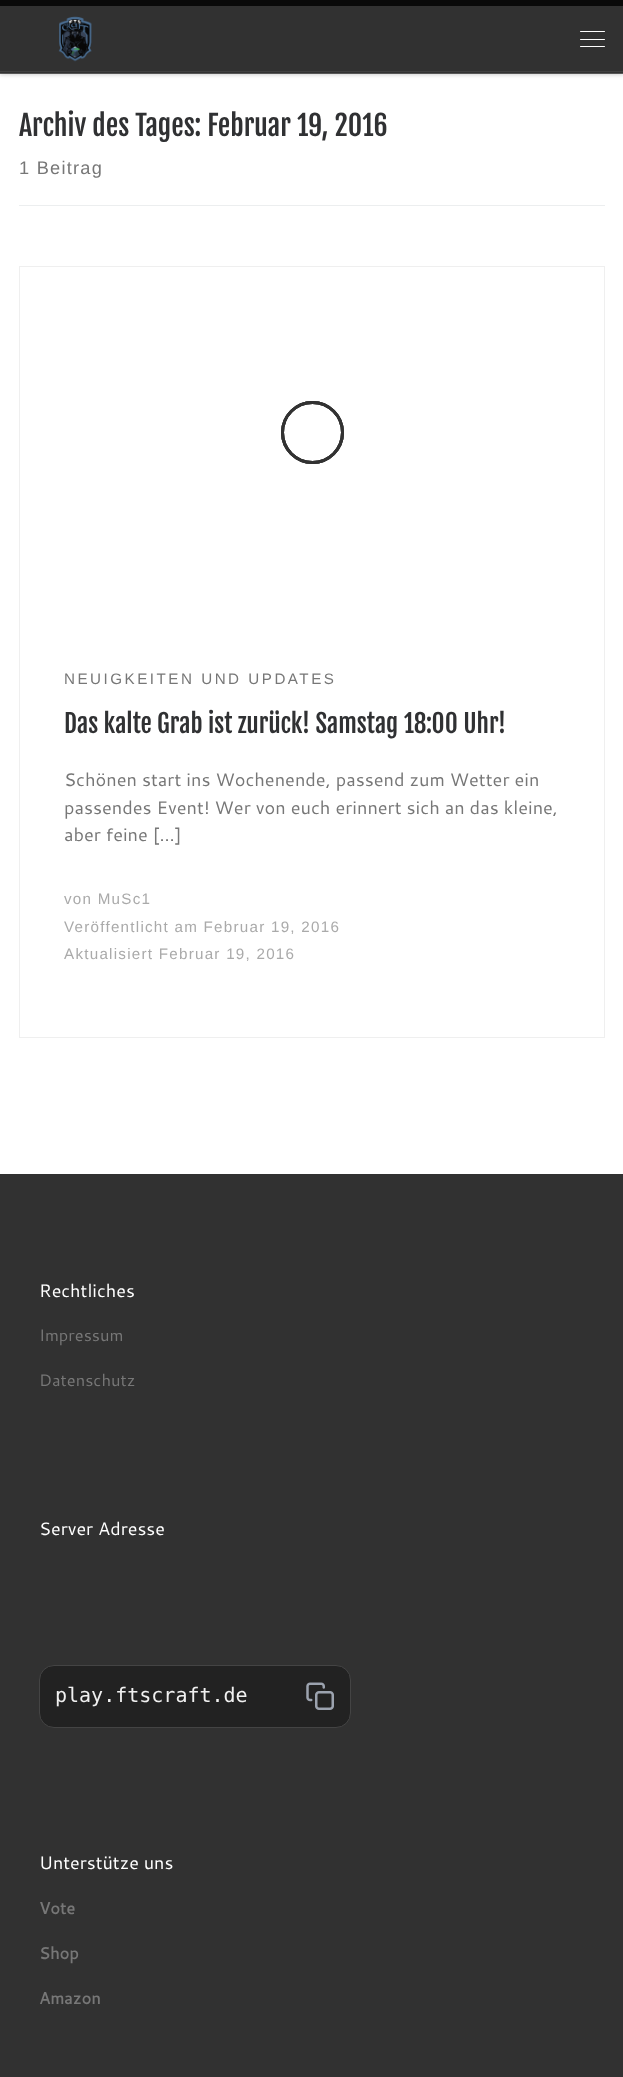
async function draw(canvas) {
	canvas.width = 623;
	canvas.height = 2077;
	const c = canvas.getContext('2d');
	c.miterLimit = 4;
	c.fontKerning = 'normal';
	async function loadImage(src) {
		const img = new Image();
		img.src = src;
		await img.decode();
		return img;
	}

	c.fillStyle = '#fff';
	c.fillRect(0, 0, 623, 2077);
	c.fillStyle = '#66666614';
	c.filter = 'blur(1px)';
	c.beginPath();
	c.rect(0, 3, 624, 73);
	c.fill();
	c.filter = 'none';
	c.fillStyle = '#0a0a0a';
	c.fillRect(0, 0, 623, 6);
	c.fillStyle = '#444';
	c.fillRect(0, 73, 623, 1);
	c.fillStyle = '#ffffff26';
	c.beginPath();
	c.moveTo(0, 72);
	c.lineTo(0, 74);
	c.lineTo(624, 74);
	c.lineTo(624, 8);
	c.lineTo(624, 72);
	c.closePath();
	c.fill();
	c.fillStyle = '#00000033';
	c.filter = 'blur(3px)';
	c.beginPath();
	c.rect(0, 6, 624, 67);
	c.fill();
	c.filter = 'none';
	c.fillStyle = '#313131';
	c.fillRect(0, 6, 623, 67);
	c.drawImage(await loadImage('img1.png'), 58, 16, 34, 46);
	c.fillStyle = '#fff';
	c.beginPath();
	c.roundRect(580, 31, 25, 1, 0.5);
	c.fill();
	c.beginPath();
	c.roundRect(580, 39, 25, 1, 0.5);
	c.fill();
	c.beginPath();
	c.roundRect(580, 46, 25, 1, 0.5);
	c.fill();
	c.fillStyle = '#404040';
	c.fillRect(0, 71, 623, 1);
	c.font = '27.9px Fjalla One';
	c.fillStyle = '#303133';
	c.fillText('Archiv des Tages: Februar 19, 2016', 19, 136);
	c.letterSpacing = '1.25px';
	c.font = '18.2px Liberation Sans';
	c.fillStyle = '#777';
	c.fillText('1 Beitrag', 19, 174);
	c.fillStyle = '#eceeef';
	c.fillRect(19, 205, 586, 1);
	c.beginPath();
	c.arc(312.5, 432.5, 30, 0, 2 * Math.PI);
	c.strokeStyle = '#323232';
	c.lineWidth = 3;
	c.stroke();
	c.beginPath();
	c.arc(312.5, 432.5, 30, 0, 2 * Math.PI);
	c.stroke();
	c.beginPath();
	c.arc(312.5, 432.5, 30, 0, 2 * Math.PI);
	c.stroke();
	c.strokeStyle = '#efefef';
	c.lineWidth = 1;
	c.strokeRect(19.5, 266.5, 585, 771);
	c.letterSpacing = '2.5px';
	c.font = '15.2px Liberation Sans';
	c.fillStyle = '#777';
	c.fillText('NEUIGKEITEN UND UPDATES', 64, 684);
	c.letterSpacing = '0px';
	c.font = '25.2px Fjalla One';
	c.fillStyle = '#303133';
	c.fillText('Das kalte Grab ist zurück! Samstag 18:00 Uhr!', 64, 733);
	c.font = '18.2px Cantarell';
	c.fillStyle = '#777';
	for (const [text, x, y] of [
		['Schönen start ins Wochenende, passend zum Wetter ein', 64, 786],
		['passendes Event! Wer von euch erinnert sich an das kleine,', 64, 814],
		['aber feine […]', 64, 841],
	]) {
		c.fillText(text, x, y);
	}
	c.letterSpacing = '1.25px';
	c.font = '15.2px Liberation Sans';
	c.fillStyle = '#aaa';
	for (const [text, x, y] of [
		['von MuSc1', 64, 904],
		['Veröffentlicht am Februar 19, 2016', 64, 932],
		['Aktualisiert Februar 19, 2016', 64, 959],
	]) {
		c.fillText(text, x, y);
	}
	c.fillStyle = '#313131';
	c.fillRect(0, 1174, 623, 903);
	c.letterSpacing = '0px';
	c.font = '18px Cantarell';
	c.fillStyle = '#fff';
	c.fillText('Rechtliches', 39, 1297);
	c.font = '16.5px Cantarell';
	c.fillStyle = '#777';
	c.fillText('Impressum', 39, 1341);
	c.fillText('Datenschutz', 39, 1386);
	c.font = '18px Cantarell';
	c.fillStyle = '#fff';
	c.fillText('Server Adresse', 39, 1535);
	c.fillStyle = '#222';
	c.beginPath();
	c.roundRect(39.5, 1665.5, 311, 62, 14.5);
	c.fill();
	c.strokeStyle = '#444';
	c.stroke();
	c.font = '20px DejaVu Sans Mono';
	c.fillStyle = '#f0f0f0';
	c.fillText('play.ftscraft.de', 55, 1702);
	c.drawImage(await loadImage('img2.png'), 306, 1682, 28, 28);
	c.font = '18px Cantarell';
	c.fillStyle = '#fff';
	c.fillText('Unterstütze uns', 39, 1869);
	c.font = 'bold 16.5px Cantarell';
	c.fillStyle = '#777';
	for (const [text, x, y] of [
		['Vote', 39, 1914],
		['Shop', 39, 1959],
		['Amazon', 39, 2004],
	]) {
		c.fillText(text, x, y);
	}
}

draw(document.querySelector('canvas'));
